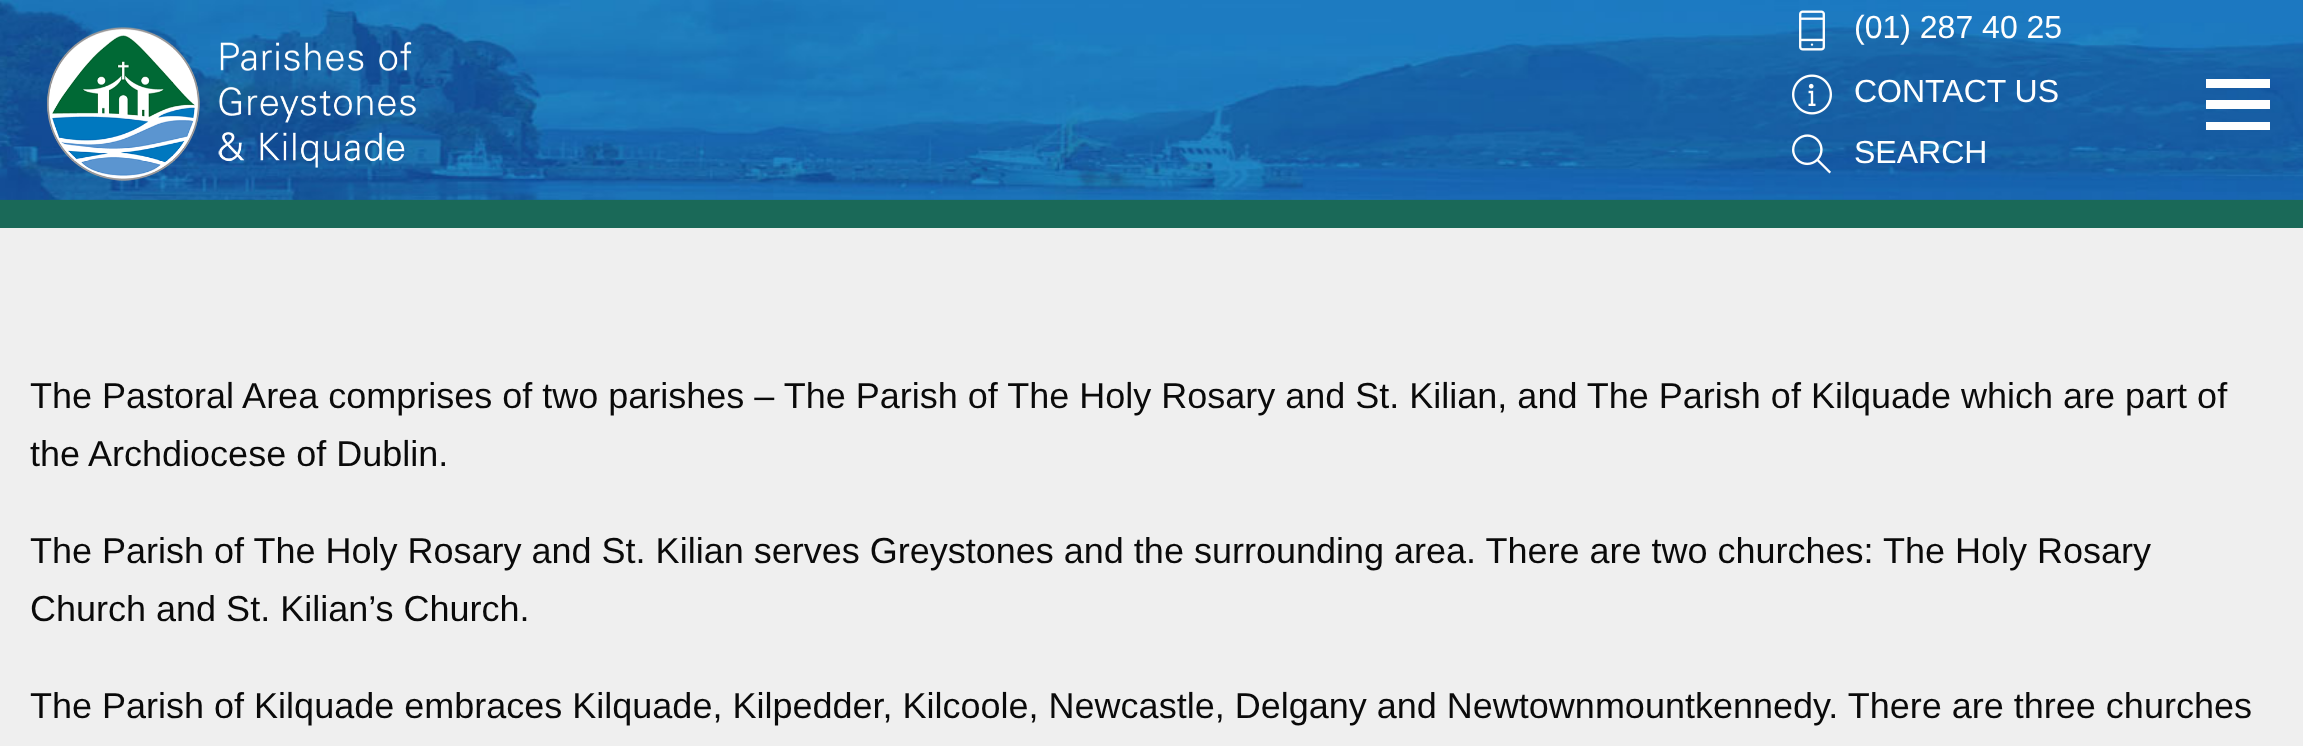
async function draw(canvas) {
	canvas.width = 2303;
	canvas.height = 746;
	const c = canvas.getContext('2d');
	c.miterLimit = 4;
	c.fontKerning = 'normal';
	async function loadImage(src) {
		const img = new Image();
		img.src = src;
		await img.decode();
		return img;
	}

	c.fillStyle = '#1a6958';
	c.fillRect(0, 0, 2303, 746);
	c.drawImage(await loadImage('img1.png'), 0, 0, 2303, 200);
	c.drawImage(await loadImage('img2.png'), 47, 27, 369, 154);
	c.drawImage(await loadImage('img3.png'), 1799, 10, 26, 41);
	c.font = '32px Liberation Sans';
	c.fillStyle = '#fefefe';
	c.fillText('(01) 287 40 25', 1854, 38);
	c.drawImage(await loadImage('img4.png'), 1792, 74, 40, 41);
	c.fillText('CONTACT US', 1854, 102);
	c.drawImage(await loadImage('img5.png'), 1792, 134, 39, 40);
	c.fillText('SEARCH', 1854, 163);
	c.beginPath();
	c.moveTo(2270, 79);
	c.lineTo(2270, 88);
	c.lineTo(2206, 88);
	c.lineTo(2206, 79);
	c.closePath();
	c.moveTo(2206, 109);
	c.lineTo(2270, 109);
	c.lineTo(2270, 100);
	c.lineTo(2206, 100);
	c.closePath();
	c.moveTo(2206, 130);
	c.lineTo(2270, 130);
	c.lineTo(2270, 122);
	c.lineTo(2206, 122);
	c.closePath();
	c.fill();
	c.fillStyle = '#efefef';
	c.fillRect(0, 228, 2303, 518);
	c.font = '36px Liberation Sans';
	c.fillStyle = '#0a0a0a';
	for (const [text, x, y] of [
		['The Pastoral Area comprises of two parishes – The Parish of The Holy Rosary and St. Kilian, and The Parish of Kilquade which are part of', 30, 408],
		['the Archdiocese of Dublin.', 30, 466],
		['The Parish of The Holy Rosary and St. Kilian serves Greystones and the surrounding area. There are two churches: The Holy Rosary', 30, 563],
		['Church and St. Kilian’s Church.', 30, 621],
		['The Parish of Kilquade embraces Kilquade, Kilpedder, Kilcoole, Newcastle, Delgany and Newtownmountkennedy. There are three churches', 30, 718],
	]) {
		c.fillText(text, x, y);
	}
}

draw(document.querySelector('canvas'));
